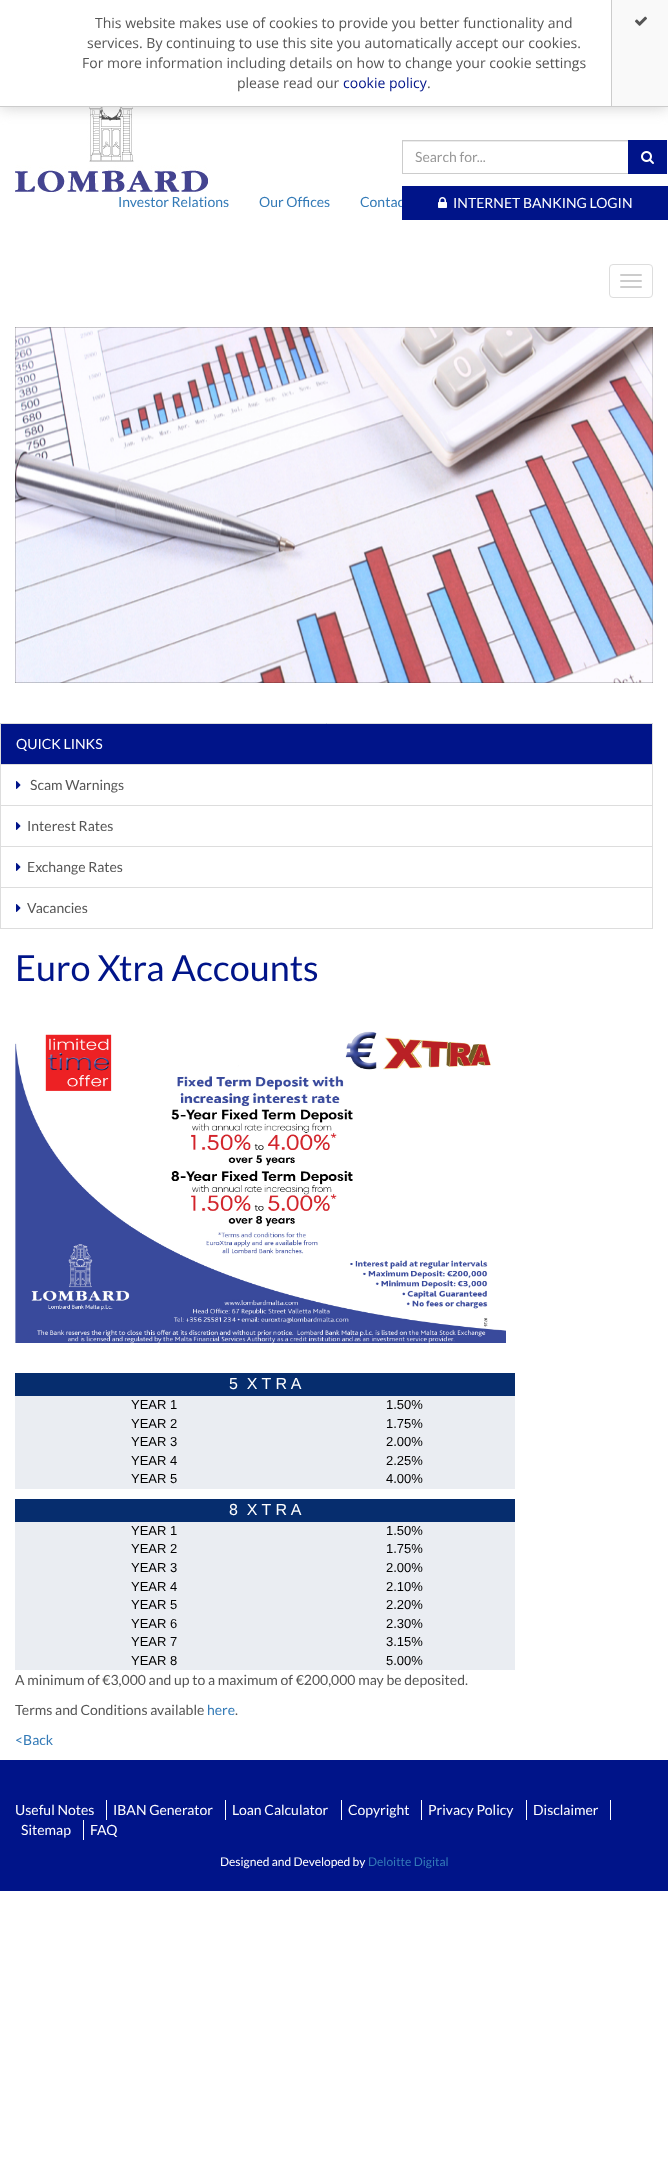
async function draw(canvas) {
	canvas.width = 668;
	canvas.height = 2162;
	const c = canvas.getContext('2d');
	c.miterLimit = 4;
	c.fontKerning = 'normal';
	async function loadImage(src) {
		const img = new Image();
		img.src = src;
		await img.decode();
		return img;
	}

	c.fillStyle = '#fff';
	c.fillRect(0, 0, 668, 2162);
	c.drawImage(await loadImage('img2.png'), 15, 107, 193, 85);
	c.fillStyle = '#ccc';
	c.filter = 'blur(7.5px)';
	c.beginPath();
	c.rect(0, 0, 668, 107);
	c.fill();
	c.filter = 'none';
	c.fillStyle = '#fff';
	c.fillRect(0, 0, 611, 106);
	c.fillStyle = '#ccc';
	c.fillRect(0, 106, 668, 1);
	c.font = '14px Open Sans';
	c.fillStyle = '#555';
	for (const [text, x, y] of [
		['This website makes use of cookies to provide you better functionality and', 95, 28],
		['services. By continuing to use this site you automatically accept our cookies.', 87, 48],
		['For more information including details on how to change your cookie settings', 82, 68],
		['please read our', 237, 88],
	]) {
		c.fillText(text, x, y);
	}
	c.fillStyle = '#001489';
	c.fillText('cookie policy', 343, 88);
	c.fillStyle = '#555';
	c.fillText('.', 427, 88);
	c.fillStyle = '#f9f9f9';
	c.fillRect(612, 0, 56, 106);
	c.fillStyle = '#ccc';
	c.fillRect(611, 0, 1, 106);
	c.drawImage(await loadImage('img1.png'), 635, 16, 12, 10);
	c.font = '14px Lato';
	c.fillStyle = '#337ab7';
	for (const [text, x, y] of [
		['Investor Relations', 118, 207],
		['Our Offices', 259, 207],
		['Contac', 360, 207],
	]) {
		c.fillText(text, x, y);
	}
	c.fillStyle = '#ececec';
	c.fillRect(403, 141, 225, 1);
	c.strokeStyle = '#ccc';
	c.strokeRect(402.5, 140.5, 226, 33);
	c.fillStyle = '#999';
	c.fillText('Search for...', 415, 162);
	c.fillStyle = '#001489';
	c.fillRect(628, 140, 39, 34);
	c.drawImage(await loadImage('img3.png'), 641, 151, 13, 13);
	c.fillRect(402, 186, 266, 34);
	c.drawImage(await loadImage('img4.png'), 438, 197, 9, 11);
	c.fillStyle = '#fff';
	c.fillText('INTERNET BANKING LOGIN', 453, 208);
	c.beginPath();
	c.roundRect(609.5, 264.5, 43, 33, 3.5);
	c.strokeStyle = '#ddd';
	c.stroke();
	c.fillStyle = '#ccc';
	c.beginPath();
	c.roundRect(620, 274, 22, 2, 1);
	c.fill();
	c.beginPath();
	c.roundRect(620, 280, 22, 2, 1);
	c.fill();
	c.beginPath();
	c.roundRect(620, 286, 22, 2, 1);
	c.fill();
	c.drawImage(await loadImage('img5.png'), 15, 327, 638, 356);
	c.fillStyle = '#001489';
	c.beginPath();
	c.rect(0.5, 723.5, 652, 41);
	c.fill();
	c.stroke();
	c.fillStyle = '#fff';
	c.fillText('QUICK LINKS', 16, 749);
	c.strokeRect(0.5, 764.5, 652, 41);
	c.drawImage(await loadImage('img6.png'), 16, 781, 5, 8);
	c.fillStyle = '#555';
	c.fillText('Scam Warnings', 30, 790);
	c.strokeRect(0.5, 805.5, 652, 41);
	c.drawImage(await loadImage('img6.png'), 16, 822, 5, 8);
	c.fillText('Interest Rates', 27, 831);
	c.strokeRect(0.5, 846.5, 652, 41);
	c.drawImage(await loadImage('img6.png'), 16, 863, 5, 8);
	c.fillText('Exchange Rates', 27, 872);
	c.strokeRect(0.5, 887.5, 652, 41);
	c.drawImage(await loadImage('img6.png'), 16, 904, 5, 8);
	c.fillText('Vacancies', 27, 913);
	c.font = '36px Lato';
	c.fillStyle = '#001489';
	c.fillText('Euro Xtra Accounts', 15, 981);
	c.drawImage(await loadImage('img7.png'), 15, 1031, 491, 312);
	c.fillStyle = '#062d6e';
	c.fillRect(15, 1373, 500, 23);
	c.font = '16px Liberation Sans';
	c.fillStyle = '#fff';
	c.fillText('5  X T R A', 229, 1389);
	c.fillStyle = '#eaedf2';
	c.fillRect(15, 1396, 500, 19);
	c.font = '13px Liberation Sans';
	c.fillStyle = '#000';
	c.fillText('YEAR 1', 131, 1409);
	c.fillText('1.50%', 386, 1409);
	c.fillStyle = '#eaedf2';
	c.fillRect(15, 1415, 500, 18);
	c.fillStyle = '#000';
	c.fillText('YEAR 2', 131, 1428);
	c.fillText('1.75%', 386, 1428);
	c.fillStyle = '#eaedf2';
	c.fillRect(15, 1433, 500, 19);
	c.fillStyle = '#000';
	c.fillText('YEAR 3', 131, 1446);
	c.fillText('2.00%', 386, 1446);
	c.fillStyle = '#eaedf2';
	c.fillRect(15, 1452, 500, 18);
	c.fillStyle = '#000';
	c.fillText('YEAR 4', 131, 1465);
	c.fillText('2.25%', 386, 1465);
	c.fillStyle = '#eaedf2';
	c.fillRect(15, 1470, 500, 19);
	c.fillStyle = '#000';
	c.fillText('YEAR 5', 131, 1483);
	c.fillText('4.00%', 386, 1483);
	c.fillStyle = '#062d6e';
	c.fillRect(15, 1499, 500, 23);
	c.font = '16px Liberation Sans';
	c.fillStyle = '#fff';
	c.fillText('8  X T R A', 229, 1515);
	c.fillStyle = '#eaedf2';
	c.fillRect(15, 1522, 500, 18);
	c.font = '13px Liberation Sans';
	c.fillStyle = '#000';
	c.fillText('YEAR 1', 131, 1535);
	c.fillText('1.50%', 386, 1535);
	c.fillStyle = '#eaedf2';
	c.fillRect(15, 1540, 500, 19);
	c.fillStyle = '#000';
	c.fillText('YEAR 2', 131, 1553);
	c.fillText('1.75%', 386, 1553);
	c.fillStyle = '#eaedf2';
	c.fillRect(15, 1559, 500, 19);
	c.fillStyle = '#000';
	c.fillText('YEAR 3', 131, 1572);
	c.fillText('2.00%', 386, 1572);
	c.fillStyle = '#eaedf2';
	c.fillRect(15, 1578, 500, 18);
	c.fillStyle = '#000';
	c.fillText('YEAR 4', 131, 1591);
	c.fillText('2.10%', 386, 1591);
	c.fillStyle = '#eaedf2';
	c.fillRect(15, 1596, 500, 19);
	c.fillStyle = '#000';
	c.fillText('YEAR 5', 131, 1609);
	c.fillText('2.20%', 386, 1609);
	c.fillStyle = '#eaedf2';
	c.fillRect(15, 1615, 500, 18);
	c.fillStyle = '#000';
	c.fillText('YEAR 6', 131, 1628);
	c.fillText('2.30%', 386, 1628);
	c.fillStyle = '#eaedf2';
	c.fillRect(15, 1633, 500, 19);
	c.fillStyle = '#000';
	c.fillText('YEAR 7', 131, 1646);
	c.fillText('3.15%', 386, 1646);
	c.fillStyle = '#eaedf2';
	c.fillRect(15, 1652, 500, 18);
	c.fillStyle = '#000';
	c.fillText('YEAR 8', 131, 1665);
	c.fillText('5.00%', 386, 1665);
	c.font = '14px Lato';
	c.fillStyle = '#555';
	c.fillText('A minimum of €3,000 and up to a maximum of €200,000 may be deposited.', 15, 1685);
	c.fillText('Terms and Conditions available', 15, 1715);
	c.fillStyle = '#337ab7';
	c.fillText('here', 207, 1715);
	c.fillStyle = '#555';
	c.fillText('.', 235, 1715);
	c.fillStyle = '#337ab7';
	c.fillText('<Back', 15, 1745);
	c.fillStyle = '#001489';
	c.fillRect(0, 1760, 668, 131);
	c.fillStyle = '#fff';
	c.fillRect(106, 1800, 1, 20);
	c.fillText('Useful Notes', 15, 1815);
	c.fillRect(225, 1800, 1, 20);
	c.fillText('IBAN Generator', 113, 1815);
	c.fillRect(341, 1800, 1, 20);
	c.fillText('Loan Calculator', 232, 1815);
	c.fillRect(421, 1800, 1, 20);
	c.fillText('Copyright', 348, 1815);
	c.fillRect(526, 1800, 1, 20);
	c.fillText('Privacy Policy', 428, 1815);
	c.fillRect(610, 1800, 1, 20);
	c.fillText('Disclaimer', 533, 1815);
	c.fillRect(83, 1820, 1, 20);
	c.fillText('Sitemap', 21, 1835);
	c.fillText('FAQ', 90, 1835);
	c.font = '12px Lato';
	c.fillText('Designed and Developed by', 220, 1866);
	c.fillStyle = '#337ab7';
	c.fillText('Deloitte Digital', 368, 1866);
}

draw(document.querySelector('canvas'));
